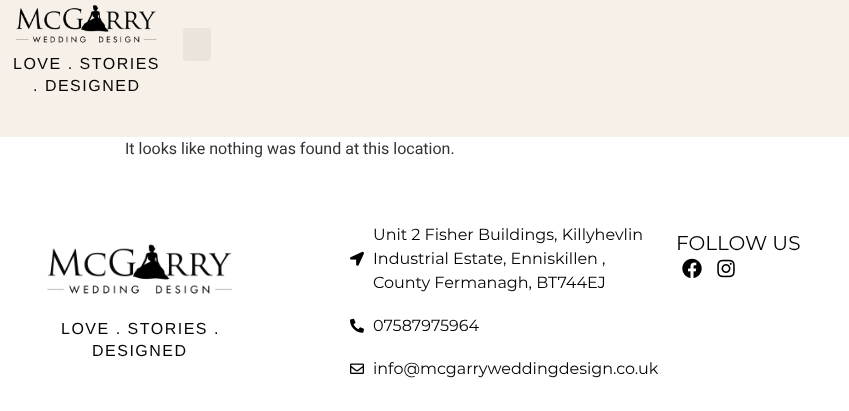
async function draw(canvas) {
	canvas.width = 849;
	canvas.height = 411;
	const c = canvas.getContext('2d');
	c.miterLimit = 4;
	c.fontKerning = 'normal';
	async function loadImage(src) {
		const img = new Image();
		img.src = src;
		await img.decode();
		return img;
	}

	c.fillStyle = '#fff';
	c.fillRect(0, 0, 849, 411);
	c.fillStyle = '#f7f0e9';
	c.fillRect(0, 0, 849, 137);
	c.fillStyle = '#ebe4dd';
	c.beginPath();
	c.roundRect(183, 28, 28, 33, 3);
	c.fill();
	c.drawImage(await loadImage('img1.png'), 15, 5, 142, 38);
	c.letterSpacing = '1.5px';
	c.font = '16px Liberation Sans';
	c.fillStyle = '#050505';
	c.fillText('LOVE . STORIES', 13, 69);
	c.fillText('. DESIGNED', 33, 91);
	c.letterSpacing = '0px';
	c.font = '16px Roboto';
	c.fillStyle = '#333';
	c.fillText('It looks like nothing was found at this location.', 125, 154);
	c.drawImage(await loadImage('img2.png'), 350, 251, 14, 15);
	c.font = '16px Montserrat';
	c.fillStyle = '#050505';
	for (const [text, x, y] of [
		['Unit 2 Fisher Buildings, Killyhevlin', 373, 240],
		['Industrial Estate, Enniskillen ,', 373, 264],
		['County Fermanagh, BT744EJ', 373, 288],
	]) {
		c.fillText(text, x, y);
	}
	c.drawImage(await loadImage('img3.png'), 350, 318, 14, 15);
	c.fillText('07587975964', 373, 331);
	c.drawImage(await loadImage('img4.png'), 350, 363, 14, 11);
	c.fillText('info@mcgarryweddingdesign.co.uk', 373, 374);
	c.font = '20px Montserrat';
	c.fillText('FOLLOW US', 676, 250);
	c.drawImage(await loadImage('img5.png'), 682, 258, 20, 20);
	c.drawImage(await loadImage('img6.png'), 717, 259, 18, 19);
	c.drawImage(await loadImage('img7.png'), 47, 244, 186, 50);
	c.letterSpacing = '1.5px';
	c.font = '16px Liberation Sans';
	c.fillText('LOVE . STORIES .', 61, 334);
	c.fillText('DESIGNED', 92, 356);
}

draw(document.querySelector('canvas'));
